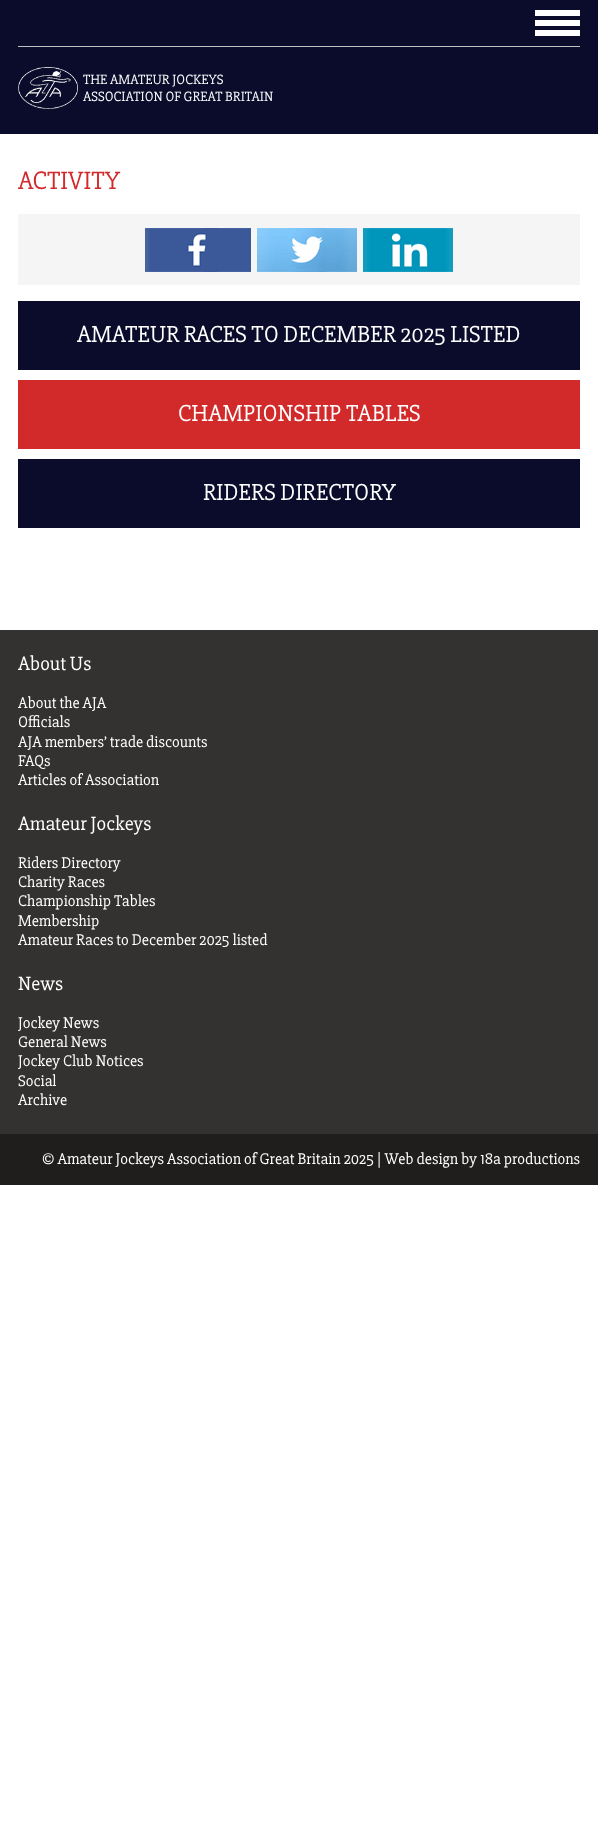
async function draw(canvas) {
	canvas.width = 598;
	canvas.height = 1841;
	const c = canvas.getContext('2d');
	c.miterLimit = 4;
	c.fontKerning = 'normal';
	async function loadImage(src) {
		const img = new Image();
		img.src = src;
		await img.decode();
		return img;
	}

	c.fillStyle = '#fff';
	c.fillRect(0, 0, 598, 1841);
	c.fillStyle = '#0b0c2b';
	c.fillRect(0, 0, 598, 134);
	c.drawImage(await loadImage('img1.png'), 535, 10, 45, 26);
	c.fillStyle = '#c0c0c0';
	c.fillRect(18, 46, 562, 1);
	c.drawImage(await loadImage('img2.png'), 18, 67, 60, 42);
	c.font = '14px "Slabo 27px"';
	c.fillStyle = '#fff';
	c.fillText('THE AMATEUR JOCKEYS', 83, 84);
	c.fillText('ASSOCIATION OF GREAT BRITAIN', 83, 101);
	c.font = '26px "Slabo 27px"';
	c.fillStyle = '#d22a2a';
	c.fillText('ACTIVITY', 18, 189);
	c.fillStyle = '#f6f5f5';
	c.fillRect(18, 214, 562, 71);
	c.drawImage(await loadImage('img3.png'), 145, 228, 106, 44);
	c.drawImage(await loadImage('img4.png'), 257, 228, 100, 44);
	c.drawImage(await loadImage('img5.png'), 363, 228, 90, 44);
	c.fillStyle = '#0b0c2b';
	c.fillRect(18, 301, 562, 69);
	c.font = '24px "Slabo 27px"';
	c.fillStyle = '#fff';
	c.fillText('AMATEUR RACES TO DECEMBER 2025 LISTED', 77, 342);
	c.fillStyle = '#d22a2a';
	c.fillRect(18, 380, 562, 69);
	c.fillStyle = '#fff';
	c.fillText('CHAMPIONSHIP TABLES', 178, 421);
	c.fillStyle = '#0b0c2b';
	c.fillRect(18, 459, 562, 69);
	c.fillStyle = '#fff';
	c.fillText('RIDERS DIRECTORY', 203, 500);
	c.fillStyle = '#343131';
	c.fillRect(0, 630, 598, 504);
	c.font = '20px "Slabo 27px"';
	c.fillStyle = '#fff';
	c.fillText('About Us', 18, 670);
	c.font = '16px "Slabo 27px"';
	for (const [text, x, y] of [
		['About the AJA', 18, 708],
		['Officials', 18, 727],
		['AJA members’ trade discounts', 18, 747],
		['FAQs', 18, 766],
		['Articles of Association', 18, 785],
	]) {
		c.fillText(text, x, y);
	}
	c.font = '20px "Slabo 27px"';
	c.fillText('Amateur Jockeys', 18, 830);
	c.font = '16px "Slabo 27px"';
	for (const [text, x, y] of [
		['Riders Directory', 18, 868],
		['Charity Races', 18, 887],
		['Championship Tables', 18, 906],
		['Membership', 18, 926],
		['Amateur Races to December 2025 listed', 18, 945],
	]) {
		c.fillText(text, x, y);
	}
	c.font = '20px "Slabo 27px"';
	c.fillText('News', 18, 990);
	c.font = '16px "Slabo 27px"';
	for (const [text, x, y] of [
		['Jockey News', 18, 1028],
		['General News', 18, 1047],
		['Jockey Club Notices', 18, 1066],
		['Social', 18, 1086],
		['Archive', 18, 1105],
	]) {
		c.fillText(text, x, y);
	}
	c.fillStyle = '#201d1d';
	c.fillRect(0, 1134, 598, 51);
	c.fillStyle = '#fff';
	c.fillText('© Amateur Jockeys Association of Great Britain 2025 | Web design by 18a productions', 42, 1164);
}

draw(document.querySelector('canvas'));
